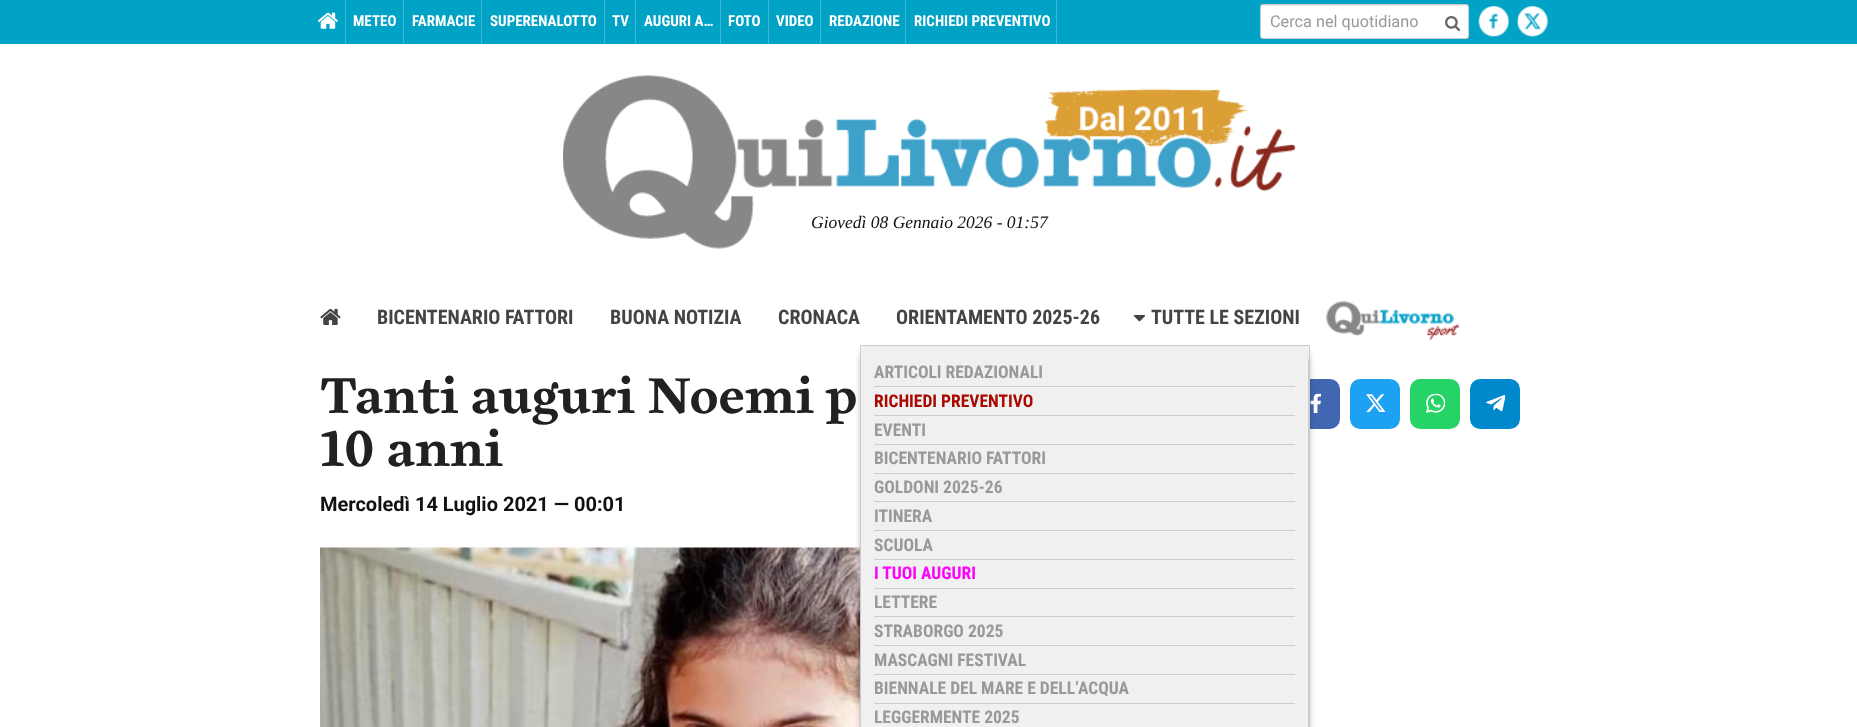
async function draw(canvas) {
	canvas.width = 1857;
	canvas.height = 727;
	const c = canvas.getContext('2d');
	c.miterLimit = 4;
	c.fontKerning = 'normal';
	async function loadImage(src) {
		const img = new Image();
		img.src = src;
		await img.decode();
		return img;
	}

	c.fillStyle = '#fff';
	c.fillRect(0, 0, 1857, 727);
	c.fillStyle = '#00a2c5';
	c.fillRect(0, 0, 1857, 44);
	c.drawImage(await loadImage('img1.png'), 317, 12, 21, 17);
	c.fillStyle = '#40b9d4';
	c.fillRect(345, 0, 1, 44);
	c.font = 'bold 15px Roboto Condensed';
	c.fillStyle = '#fff';
	c.fillText('METEO', 353, 26);
	c.fillStyle = '#40b9d4';
	c.fillRect(403, 0, 1, 44);
	c.fillStyle = '#fff';
	c.fillText('FARMACIE', 412, 26);
	c.fillStyle = '#40b9d4';
	c.fillRect(481, 0, 1, 44);
	c.fillStyle = '#fff';
	c.fillText('SUPERENALOTTO', 490, 26);
	c.fillStyle = '#40b9d4';
	c.fillRect(604, 0, 1, 44);
	c.fillStyle = '#fff';
	c.fillText('TV', 612, 26);
	c.fillStyle = '#40b9d4';
	c.fillRect(635, 0, 1, 44);
	c.fillStyle = '#fff';
	c.fillText('AUGURI A…', 644, 26);
	c.fillStyle = '#40b9d4';
	c.fillRect(720, 0, 1, 44);
	c.fillStyle = '#fff';
	c.fillText('FOTO', 728, 26);
	c.fillStyle = '#40b9d4';
	c.fillRect(768, 0, 1, 44);
	c.fillStyle = '#fff';
	c.fillText('VIDEO', 776, 26);
	c.fillStyle = '#40b9d4';
	c.fillRect(820, 0, 1, 44);
	c.fillStyle = '#fff';
	c.fillText('REDAZIONE', 829, 26);
	c.fillStyle = '#40b9d4';
	c.fillRect(905, 0, 1, 44);
	c.fillStyle = '#fff';
	c.fillText('RICHIEDI PREVENTIVO', 914, 26);
	c.fillStyle = '#40b9d4';
	c.fillRect(1056, 0, 1, 44);
	c.fillStyle = '#fff';
	c.beginPath();
	c.roundRect(1261, 5, 207, 33, 1);
	c.fill();
	c.fillStyle = '#00000012';
	c.beginPath();
	c.moveTo(1262, 6);
	c.lineTo(1466, 6);
	c.lineTo(1468, 7);
	c.lineTo(1468, 8);
	c.bezierCurveTo(1468, 7, 1468, 6, 1467, 5);
	c.lineTo(1262, 5);
	c.lineTo(1261, 5);
	c.lineTo(1261, 8);
	c.closePath();
	c.fill();
	c.beginPath();
	c.roundRect(1260.5, 4.5, 208, 34, 2);
	c.strokeStyle = '#ccc';
	c.stroke();
	c.font = '16.25px Roboto';
	c.fillStyle = '#999';
	c.fillText('Cerca nel quotidiano', 1270, 27);
	c.fillStyle = '#fff';
	c.fillRect(1466, 6, 2, 1);
	c.drawImage(await loadImage('img2.png'), 1445, 16, 16, 15);
	c.drawImage(await loadImage('img3.png'), 1478, 6, 31, 31);
	c.drawImage(await loadImage('img4.png'), 1517, 6, 31, 31);
	c.drawImage(await loadImage('img5.png'), 563, 75, 733, 174);
	c.font = 'italic 17.5px Liberation Serif';
	c.fillStyle = '#111';
	c.fillText('Giovedì 08 Gennaio 2026 - 01:57', 811, 228);
	c.drawImage(await loadImage('img6.png'), 320, 308, 21, 17);
	c.font = 'bold 20px Roboto Condensed';
	c.fillStyle = '#444';
	for (const [text, x, y] of [
		['BICENTENARIO FATTORI', 377, 324],
		['BUONA NOTIZIA', 610, 324],
		['CRONACA', 778, 324],
	]) {
		c.fillText(text, x, y);
	}
	c.drawImage(await loadImage('img7.png'), 1133, 315, 13, 7);
	c.fillText('TUTTE LE SEZIONI', 1151, 324);
	c.drawImage(await loadImage('img9.png'), 320, 547, 540, 180);
	c.fillStyle = '#4267b2';
	c.beginPath();
	c.roundRect(1290, 379, 50, 50, 10);
	c.fill();
	c.drawImage(await loadImage('img10.png'), 1310, 393, 11, 20);
	c.fillStyle = '#111';
	c.filter = 'blur(5px)';
	c.beginPath();
	c.rect(865, 354, 440, 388);
	c.fill();
	c.filter = 'none';
	c.fillStyle = '#f0f0f0';
	c.beginPath();
	c.rect(860.5, 345.5, 449, 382);
	c.fill();
	c.stroke();
	c.fillStyle = '#ccc';
	c.fillRect(1308, 359, 1, 368);
	c.fillRect(874, 386, 421, 1);
	c.font = 'bold 17.5px Roboto Condensed';
	c.fillStyle = '#999';
	c.fillText('ARTICOLI REDAZIONALI', 874, 378);
	c.fillStyle = '#ccc';
	c.fillRect(874, 415, 421, 1);
	c.fillStyle = '#a90800';
	c.fillText('RICHIEDI PREVENTIVO', 874, 407);
	c.fillStyle = '#ccc';
	c.fillRect(874, 444, 421, 1);
	c.fillStyle = '#999';
	c.fillText('EVENTI', 874, 436);
	c.fillStyle = '#ccc';
	c.fillRect(874, 473, 421, 1);
	c.fillStyle = '#999';
	c.fillText('BICENTENARIO FATTORI', 874, 464);
	c.fillStyle = '#ccc';
	c.fillRect(874, 501, 421, 1);
	c.fillStyle = '#999';
	c.fillText('GOLDONI 2025-26', 874, 493);
	c.fillStyle = '#ccc';
	c.fillRect(874, 530, 421, 1);
	c.fillStyle = '#999';
	c.fillText('ITINERA', 874, 522);
	c.fillStyle = '#ccc';
	c.fillRect(874, 559, 421, 1);
	c.fillStyle = '#999';
	c.fillText('SCUOLA', 874, 551);
	c.fillStyle = '#ccc';
	c.fillRect(874, 588, 421, 1);
	c.fillStyle = '#f0f';
	c.fillText('I TUOI AUGURI', 874, 579);
	c.fillStyle = '#ccc';
	c.fillRect(874, 616, 421, 1);
	c.fillStyle = '#999';
	c.fillText('LETTERE', 874, 608);
	c.fillStyle = '#ccc';
	c.fillRect(874, 645, 421, 1);
	c.fillStyle = '#999';
	c.fillText('STRABORGO 2025', 874, 637);
	c.fillStyle = '#ccc';
	c.fillRect(874, 674, 421, 1);
	c.fillStyle = '#999';
	c.fillText('MASCAGNI FESTIVAL', 874, 666);
	c.fillStyle = '#ccc';
	c.fillRect(874, 703, 421, 1);
	c.fillStyle = '#999';
	c.fillText('BIENNALE DEL MARE E DELL’ACQUA', 874, 694);
	c.fillText('LEGGERMENTE 2025', 874, 723);
	c.drawImage(await loadImage('img8.png'), 1326, 301, 134, 39);
	c.font = 'bold 20px Roboto Condensed';
	c.fillStyle = '#444';
	c.fillText('ORIENTAMENTO 2025-26', 896, 324);
	c.font = 'bold 52.5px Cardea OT';
	c.fillStyle = '#212121';
	c.fillText('Tanti auguri Noemi p', 320, 413);
	c.fillText('10 anni', 320, 466);
	c.font = 'bold 20px Roboto';
	c.fillStyle = '#111';
	c.fillText('Mercoledì 14 Luglio 2021 — 00:01', 320, 511);
	c.fillStyle = '#1da1f2';
	c.beginPath();
	c.roundRect(1350, 379, 50, 50, 10);
	c.fill();
	c.drawImage(await loadImage('img11.png'), 1366, 394, 20, 18);
	c.fillStyle = '#25d366';
	c.beginPath();
	c.roundRect(1410, 379, 50, 50, 10);
	c.fill();
	c.drawImage(await loadImage('img12.png'), 1426, 393, 20, 20);
	c.fillStyle = '#08c';
	c.beginPath();
	c.roundRect(1470, 379, 50, 50, 10);
	c.fill();
	c.drawImage(await loadImage('img13.png'), 1486, 395, 20, 17);
}

draw(document.querySelector('canvas'));
